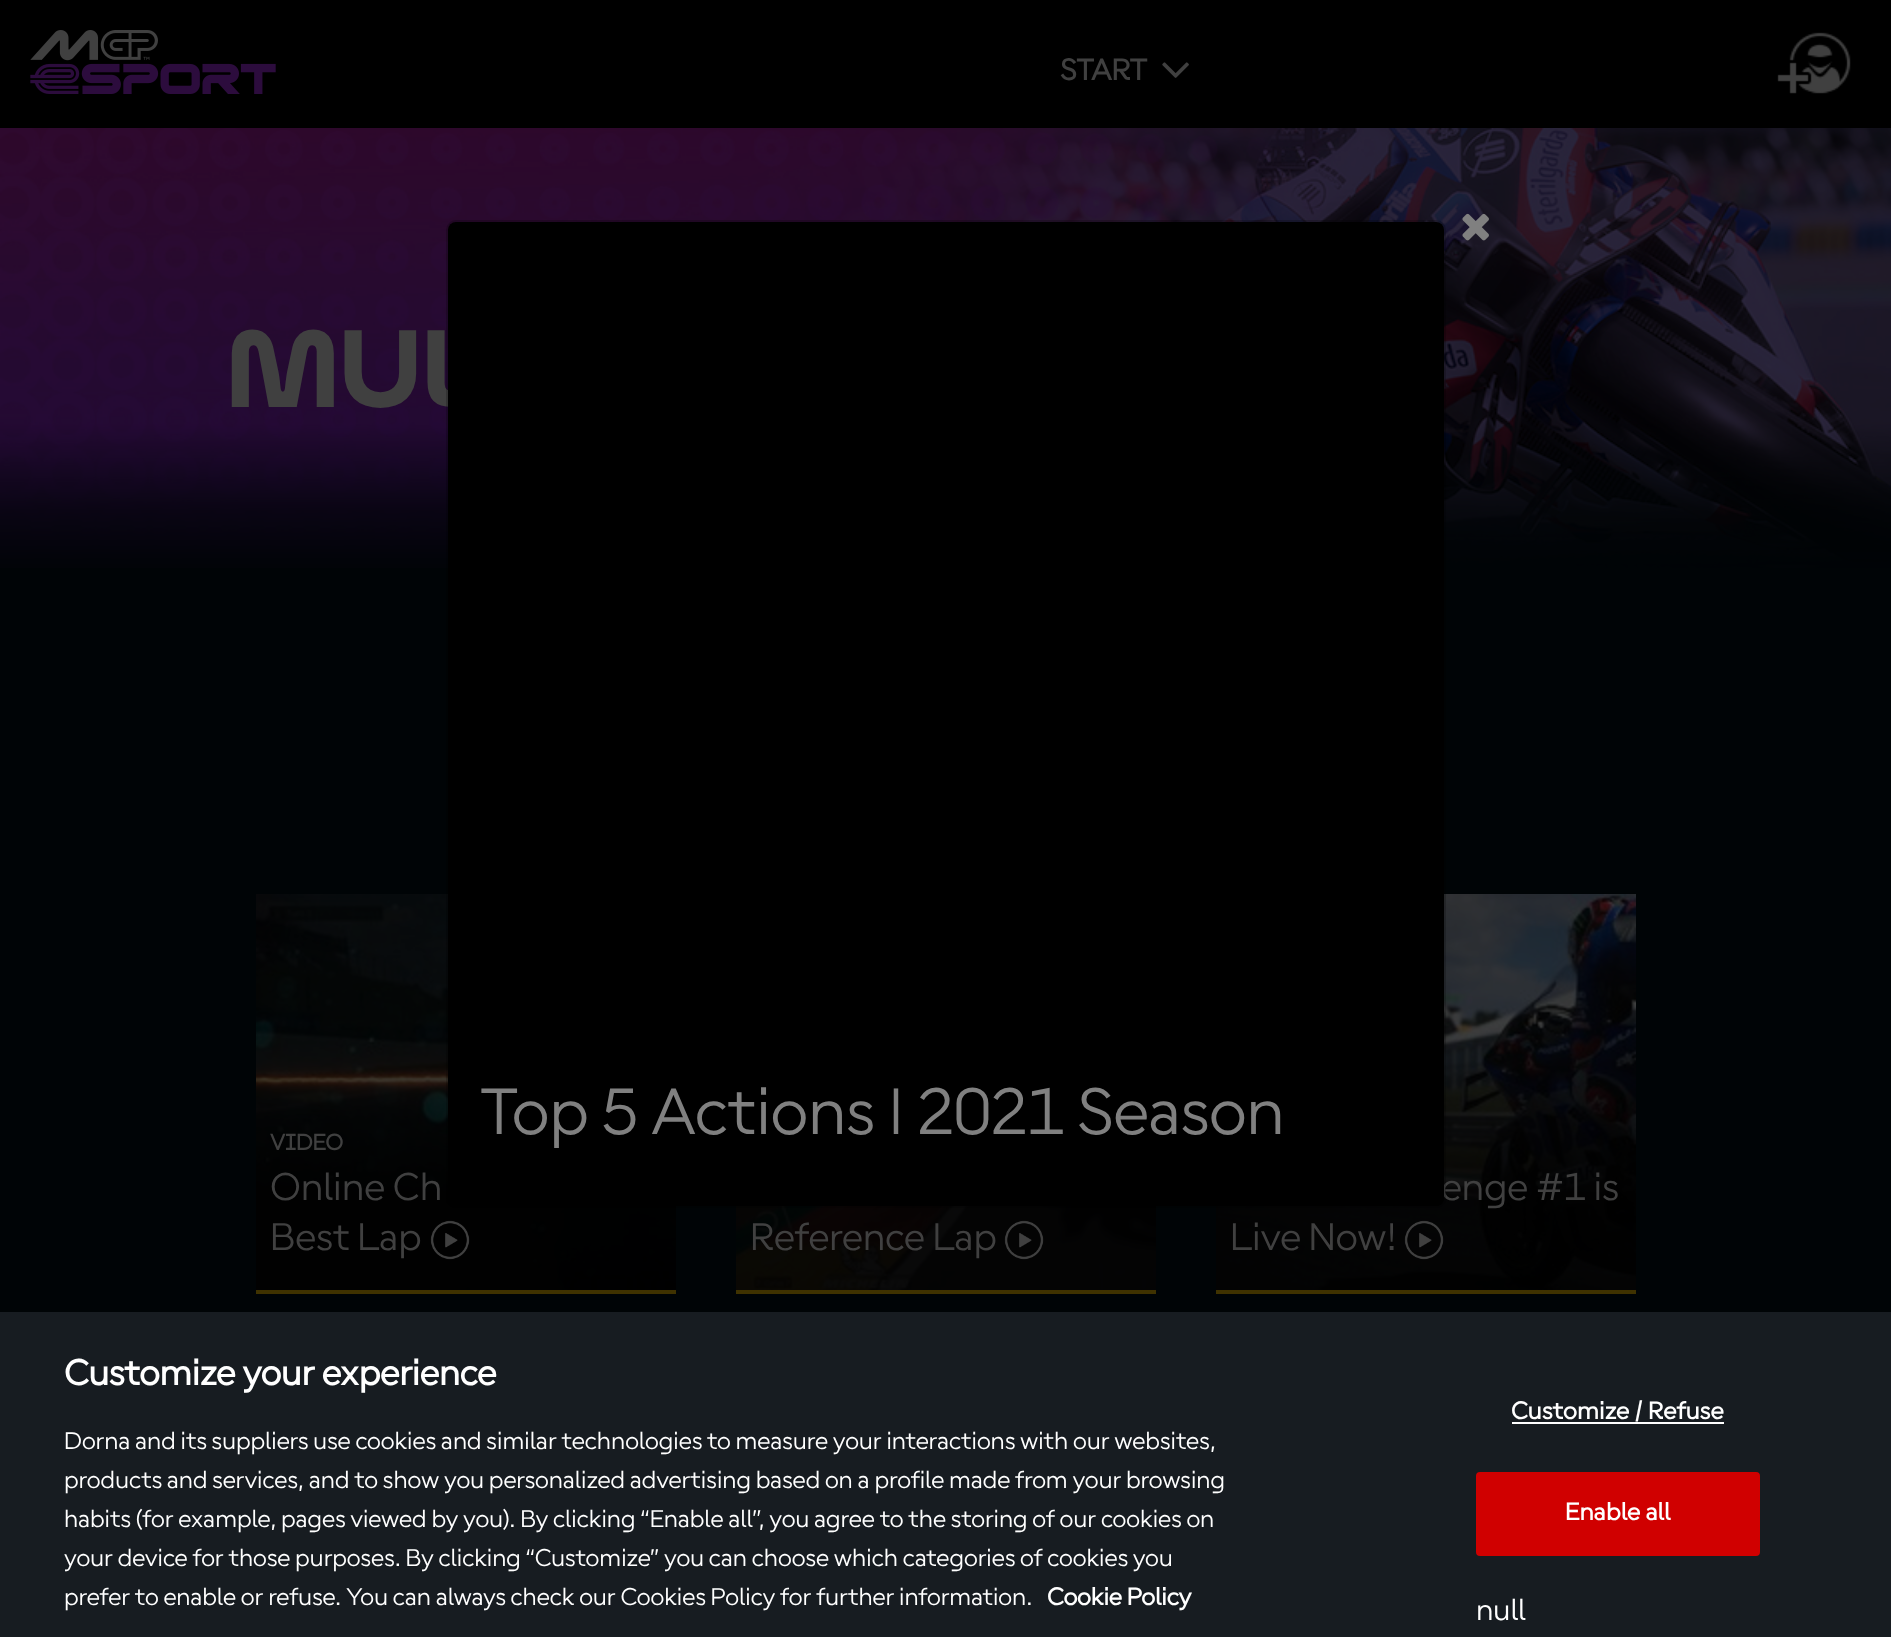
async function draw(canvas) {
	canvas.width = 1891;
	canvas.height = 1637;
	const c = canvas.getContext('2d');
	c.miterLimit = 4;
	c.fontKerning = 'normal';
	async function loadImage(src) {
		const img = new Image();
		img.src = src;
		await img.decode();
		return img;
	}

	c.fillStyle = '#000406';
	c.fillRect(0, 0, 1891, 1637);
	c.fillStyle = '#000';
	c.fillRect(0, 0, 1891, 128);
	c.drawImage(await loadImage('img1.png'), 30, 30, 246, 64);
	c.font = 'bold 32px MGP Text';
	c.fillStyle = '#404040';
	c.fillText('START', 1060, 80);
	c.drawImage(await loadImage('img2.png'), 1162, 62, 27, 16);
	c.drawImage(await loadImage('img3.png'), 1777, 32, 74, 62);
	c.drawImage(await loadImage('img4.png'), 0, 128, 1891, 440);
	c.font = '500 96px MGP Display';
	c.fillText('MUL', 226, 407);
	c.drawImage(await loadImage('img5.png'), 256, 894, 420, 396);
	c.fillStyle = '#3f3200';
	c.fillRect(256, 1290, 420, 4);
	c.font = 'bold 24px MGP Text';
	c.fillStyle = '#404040';
	c.fillText('VIDEO', 270, 1150);
	c.font = '41.5px MGP Text';
	c.fillText('Online Ch', 270, 1200);
	c.fillText('Best Lap', 270, 1250);
	c.drawImage(await loadImage('img6.png'), 430, 1220, 40, 40);
	c.drawImage(await loadImage('img7.png'), 736, 1206, 420, 84);
	c.fillStyle = '#3f3200';
	c.fillRect(736, 1290, 420, 4);
	c.fillStyle = '#404040';
	c.fillText('Reference Lap', 750, 1250);
	c.drawImage(await loadImage('img8.png'), 1004, 1220, 40, 40);
	c.drawImage(await loadImage('img9.png'), 1216, 894, 420, 396);
	c.fillStyle = '#3f3200';
	c.fillRect(1216, 1290, 420, 4);
	c.fillStyle = '#404040';
	c.fillText('enge #1 is', 1441, 1200);
	c.fillText('Live Now!', 1230, 1250);
	c.drawImage(await loadImage('img10.png'), 1404, 1220, 40, 40);
	c.fillStyle = '#000';
	c.beginPath();
	c.roundRect(448, 222, 996, 984, 8);
	c.fill();
	c.beginPath();
	c.roundRect(447, 221, 998, 986, 9);
	c.strokeStyle = '#00000033';
	c.lineWidth = 2;
	c.stroke();
	c.drawImage(await loadImage('img11.png'), 1462, 213, 27, 28);
	c.font = '70.4px MGP Text';
	c.fillStyle = '#808080';
	c.fillText('Top 5 Actions | 2021 Season', 480, 1134);
	c.fillStyle = '#171c21';
	c.fillRect(0, 1312, 1891, 325);
	c.font = 'bold 38.4px MGP Text';
	c.fillStyle = '#fff';
	c.fillText('Customize your experience', 64, 1385);
	c.font = '26px MGP Text';
	for (const [text, x, y] of [
		['Dorna and its suppliers use cookies and similar technologies to measure your interactions with our websites,', 64, 1449],
		['products and services, and to show you personalized advertising based on a profile made from your browsing', 64, 1488],
		['habits (for example, pages viewed by you). By clicking “Enable all”, you agree to the storing of our cookies on', 64, 1527],
		['your device for those purposes. By clicking “Customize” you can choose which categories of cookies you', 64, 1566],
		['prefer to enable or refuse. You can always check our Cookies Policy for further information.', 64, 1605],
	]) {
		c.fillText(text, x, y);
	}
	c.font = 'bold 26px MGP Text';
	c.fillText('Cookie Policy', 1047, 1605);
	c.letterSpacing = '0.25px';
	c.fillText('Customize / Refuse', 1511, 1419);
	c.fillRect(1512, 1422, 212, 2);
	c.fillStyle = '#d00000';
	c.beginPath();
	c.roundRect(1477, 1473, 282, 82, 3);
	c.fill();
	c.strokeStyle = '#d00000';
	c.stroke();
	c.fillStyle = '#fff';
	c.fillText('Enable all', 1565, 1520);
	c.letterSpacing = '0px';
	c.font = '32px MGP Text';
	c.fillText('null', 1476, 1620);
}

draw(document.querySelector('canvas'));
